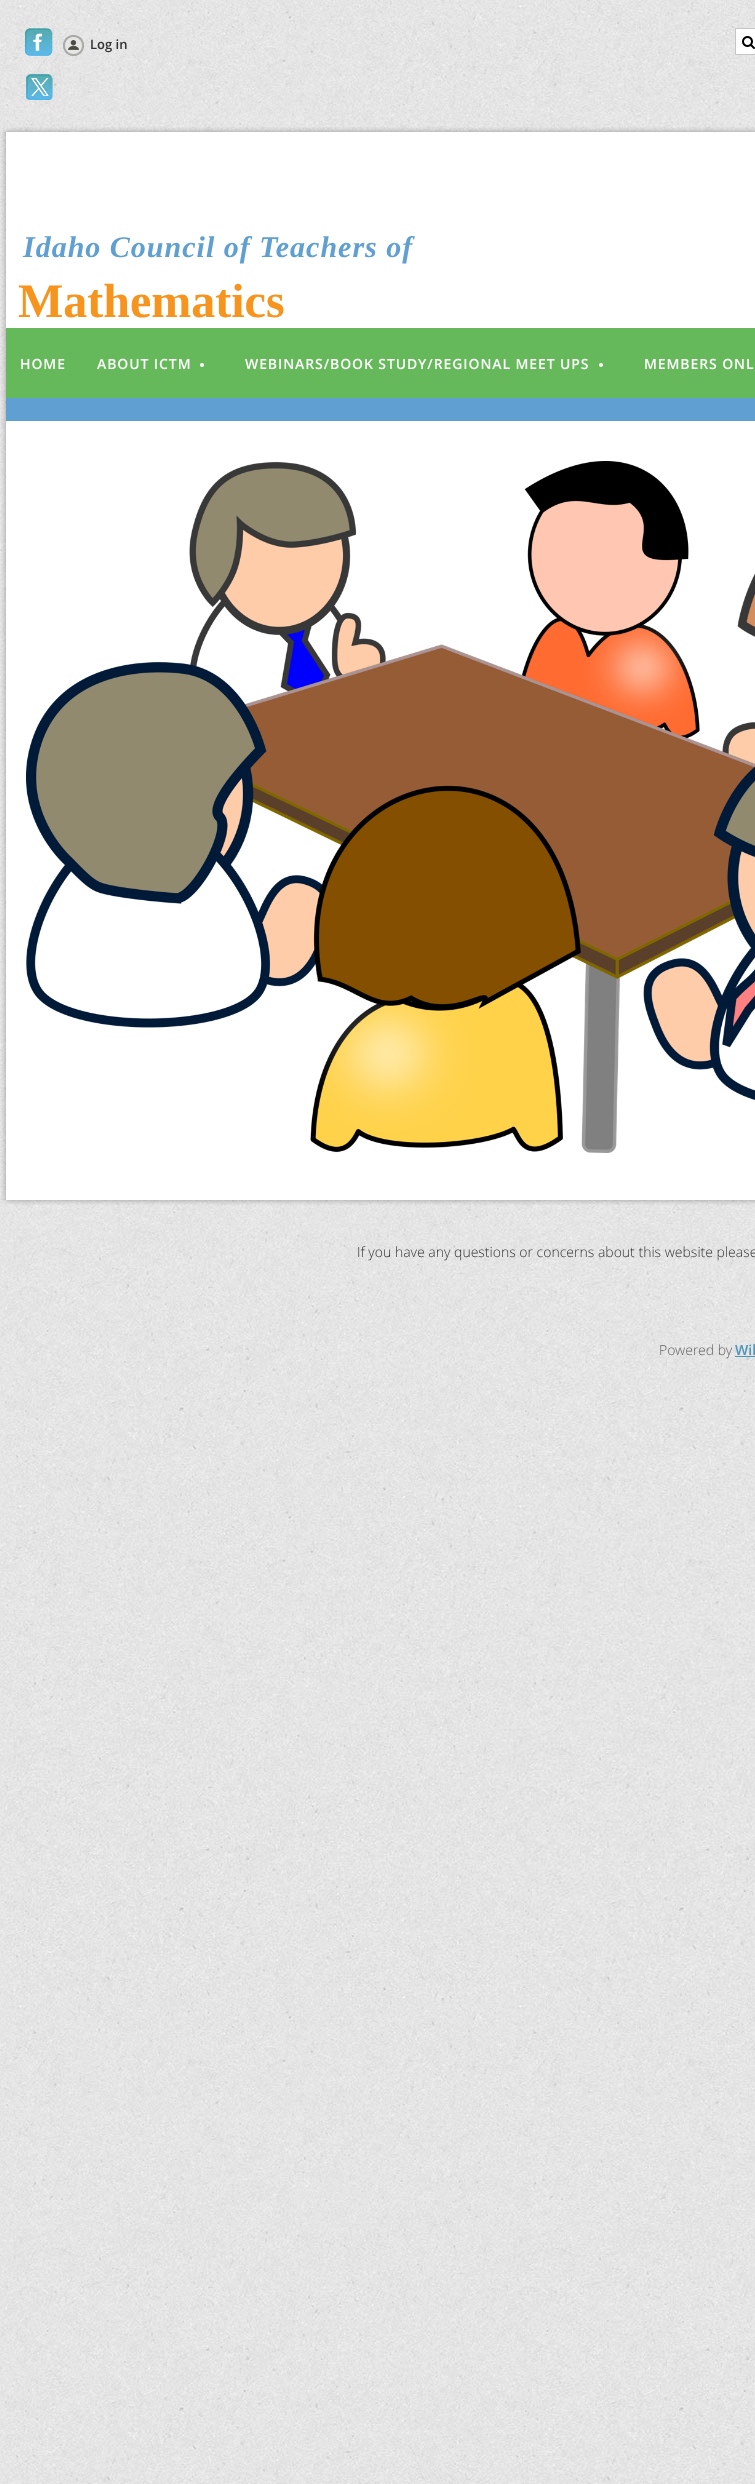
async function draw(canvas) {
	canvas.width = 755;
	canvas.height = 2484;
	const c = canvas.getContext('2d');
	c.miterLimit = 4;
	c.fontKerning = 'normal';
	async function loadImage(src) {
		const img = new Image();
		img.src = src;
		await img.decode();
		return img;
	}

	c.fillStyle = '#fff';
	c.fillRect(0, 0, 755, 2484);
	c.drawImage(await loadImage('img1.png'), 0, 0, 755, 2484);
	c.drawImage(await loadImage('img2.png'), 25, 28, 28, 29);
	c.drawImage(await loadImage('img3.png'), 26, 74, 27, 26);
	c.drawImage(await loadImage('img4.png'), 63, 35, 21, 21);
	c.font = '600 13px Open Sans';
	c.fillStyle = '#333';
	c.fillText('Log in', 90, 49);
	c.fillStyle = '#fff';
	c.beginPath();
	c.rect(735.5, 28.5, 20, 26);
	c.fill();
	c.strokeStyle = '#c6c6c6';
	c.stroke();
	c.drawImage(await loadImage('img5.png'), 742, 36, 13, 13);
	c.drawImage(await loadImage('img6.png'), 3, 128, 8, 4);
	c.drawImage(await loadImage('img7.png'), 11, 127, 744, 5);
	c.drawImage(await loadImage('img8.png'), 1, 132, 5, 196);
	c.fillRect(6, 132, 749, 196);
	c.letterSpacing = '1px';
	c.font = 'italic bold 30px Liberation Serif';
	c.fillStyle = '#5f9fd2';
	c.fillText('Idaho Council of Teachers of', 23, 257);
	c.letterSpacing = '0px';
	c.font = 'bold 48px Liberation Serif';
	c.fillStyle = '#f7941d';
	c.fillText('Mathematics', 18, 317);
	c.drawImage(await loadImage('img9.png'), 1, 328, 5, 70);
	c.fillStyle = '#66b95b';
	c.fillRect(6, 328, 749, 70);
	c.letterSpacing = '0.9px';
	c.font = '600 14px Open Sans';
	c.fillStyle = '#fff';
	c.fillText('HOME', 20, 369);
	c.fillText('ABOUT ICTM', 97, 369);
	c.beginPath();
	c.arc(202, 365, 2, 0, 2 * Math.PI);
	c.fill();
	c.fillText('WEBINARS/BOOK STUDY/REGIONAL MEET UPS', 245, 369);
	c.beginPath();
	c.arc(601, 365, 2, 0, 2 * Math.PI);
	c.fill();
	c.fillText('MEMBERS ONL', 644, 369);
	c.drawImage(await loadImage('img10.png'), 1, 398, 5, 23);
	c.fillStyle = '#5f9fd2';
	c.fillRect(6, 398, 749, 23);
	c.drawImage(await loadImage('img11.png'), 1, 421, 5, 779);
	c.fillStyle = '#fff';
	c.fillRect(6, 421, 749, 779);
	c.drawImage(await loadImage('img12.png'), 26, 461, 729, 692);
	c.drawImage(await loadImage('img13.png'), 3, 1200, 8, 4);
	c.drawImage(await loadImage('img14.png'), 11, 1200, 744, 5);
	c.letterSpacing = '0px';
	c.font = '300 14px Open Sans';
	c.fillStyle = '#333';
	c.fillText('If you have any questions or concerns about this website please', 357, 1257);
	c.fillStyle = '#646464';
	c.fillText('Powered by', 659, 1355);
	c.fillStyle = '#4e95ba';
	c.fillRect(735, 1356, 20, 1);
	c.font = '600 14px Open Sans';
	c.fillText('Wil', 735, 1355);
}

draw(document.querySelector('canvas'));
